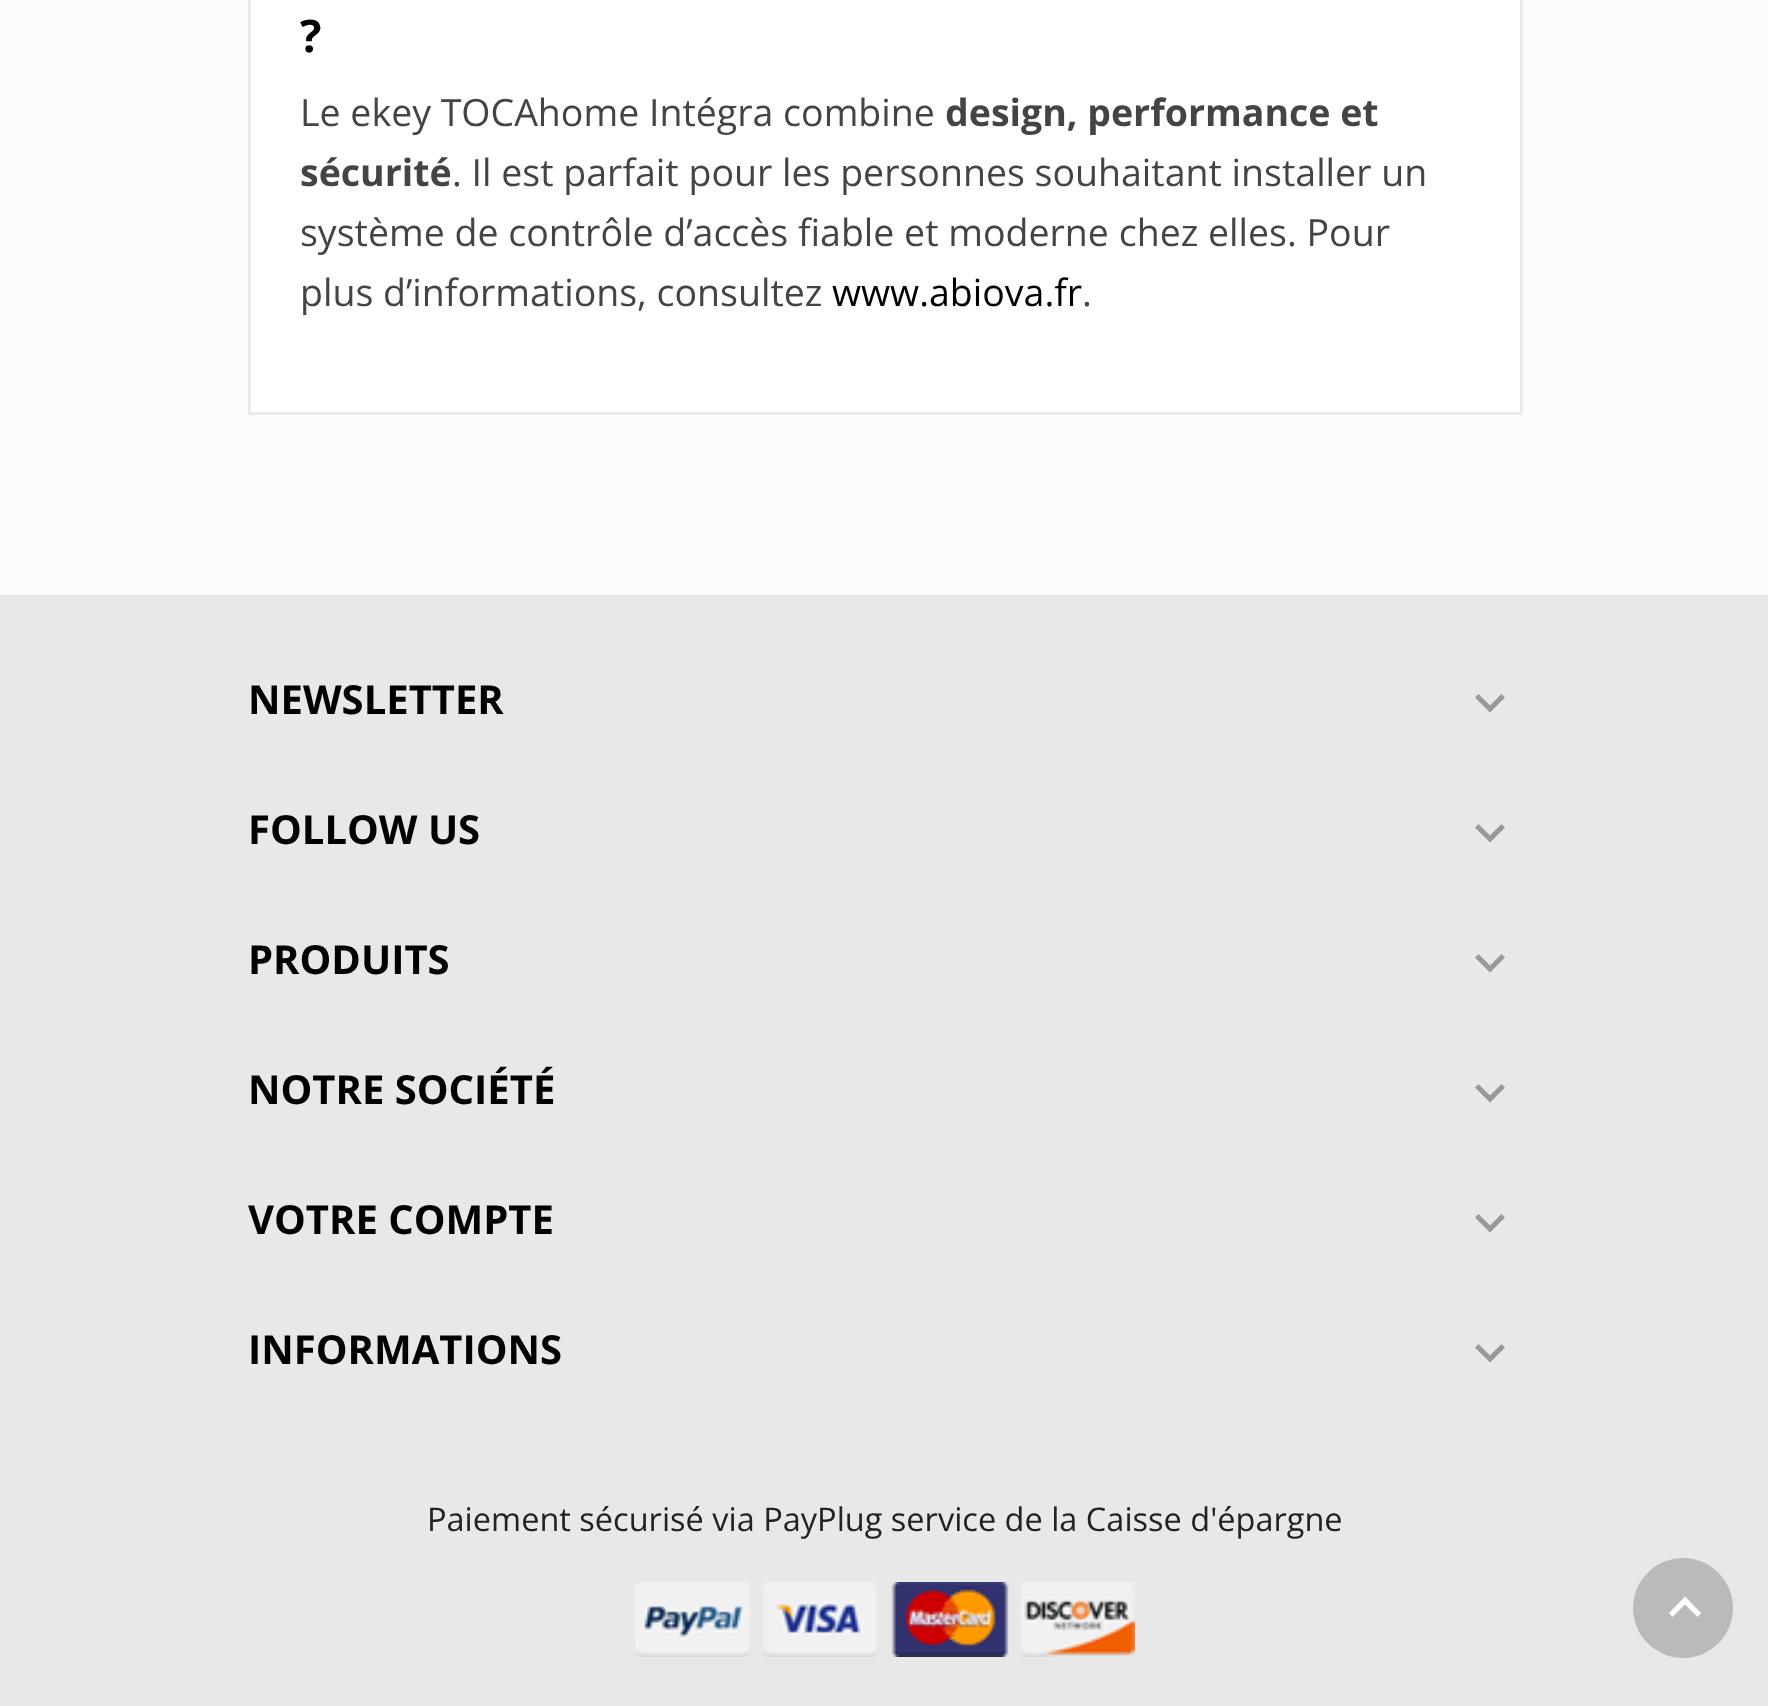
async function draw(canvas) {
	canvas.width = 1768;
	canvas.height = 1706;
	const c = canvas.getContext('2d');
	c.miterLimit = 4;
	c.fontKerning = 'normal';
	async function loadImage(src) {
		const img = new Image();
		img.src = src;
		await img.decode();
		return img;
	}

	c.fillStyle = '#fbfbfb';
	c.fillRect(0, 0, 1768, 1706);
	c.fillStyle = '#fff';
	c.beginPath();
	c.rect(249.5, -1.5, 1272, 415);
	c.fill();
	c.strokeStyle = '#eaeaea';
	c.lineWidth = 3;
	c.stroke();
	c.font = 'bold 45px Open Sans';
	c.fillStyle = '#000';
	c.fillText('?', 300, 52);
	c.font = '37.5px Open Sans';
	c.fillStyle = '#444';
	c.fillText('Le ekey TOCAhome Intégra combine', 300, 126);
	c.font = 'bold 37.5px Open Sans';
	c.fillText('design, performance et', 945, 126);
	c.fillText('sécurité', 300, 186);
	c.font = '37.5px Open Sans';
	for (const [text, x, y] of [
		['. Il est parfait pour les personnes souhaitant installer un', 452, 186],
		['système de contrôle d’accès fiable et moderne chez elles. Pour', 300, 246],
		['plus d’informations, consultez', 300, 306],
	]) {
		c.fillText(text, x, y);
	}
	c.fillStyle = '#000';
	c.fillText('www.abiova.fr', 832, 306);
	c.fillStyle = '#444';
	c.fillText('.', 1082, 306);
	c.fillStyle = '#e8e8e8';
	c.fillRect(0, 595, 1768, 310);
	c.font = 'bold 40px Open Sans';
	c.fillStyle = '#000';
	c.fillText('NEWSLETTER', 248, 714);
	c.fillStyle = '#999';
	c.beginPath();
	c.moveTo(1478.5, 694);
	c.lineTo(1490, 705.5);
	c.lineTo(1501.5, 694);
	c.lineTo(1505, 697.5);
	c.lineTo(1490, 712.5);
	c.lineTo(1475, 697.5);
	c.closePath();
	c.fill();
	c.fillStyle = '#000';
	c.fillText('FOLLOW US', 248, 844);
	c.fillStyle = '#999';
	c.beginPath();
	c.moveTo(1478.5, 824);
	c.lineTo(1490, 835.5);
	c.lineTo(1501.5, 824);
	c.lineTo(1505, 827.5);
	c.lineTo(1490, 842.5);
	c.lineTo(1475, 827.5);
	c.closePath();
	c.fill();
	c.fillStyle = '#e8e8e8';
	c.fillRect(0, 905, 1768, 801);
	c.fillStyle = '#000';
	c.fillText('PRODUITS', 248, 974);
	c.fillStyle = '#999';
	c.beginPath();
	c.moveTo(1478.5, 954);
	c.lineTo(1490, 965.5);
	c.lineTo(1501.5, 954);
	c.lineTo(1505, 957.5);
	c.lineTo(1490, 972.5);
	c.lineTo(1475, 957.5);
	c.closePath();
	c.fill();
	c.fillStyle = '#000';
	c.fillText('NOTRE SOCIÉTÉ', 248, 1104);
	c.fillStyle = '#999';
	c.beginPath();
	c.moveTo(1478.5, 1084);
	c.lineTo(1490, 1095.5);
	c.lineTo(1501.5, 1084);
	c.lineTo(1505, 1087.5);
	c.lineTo(1490, 1102.5);
	c.lineTo(1475, 1087.5);
	c.closePath();
	c.fill();
	c.fillStyle = '#000';
	c.fillText('VOTRE COMPTE', 248, 1234);
	c.fillStyle = '#999';
	c.beginPath();
	c.moveTo(1478.5, 1214);
	c.lineTo(1490, 1225.5);
	c.lineTo(1501.5, 1214);
	c.lineTo(1505, 1217.5);
	c.lineTo(1490, 1232.5);
	c.lineTo(1475, 1217.5);
	c.closePath();
	c.fill();
	c.fillStyle = '#000';
	c.fillText('INFORMATIONS', 248, 1364);
	c.fillStyle = '#999';
	c.beginPath();
	c.moveTo(1478.5, 1344);
	c.lineTo(1490, 1355.5);
	c.lineTo(1501.5, 1344);
	c.lineTo(1505, 1347.5);
	c.lineTo(1490, 1362.5);
	c.lineTo(1475, 1347.5);
	c.closePath();
	c.fill();
	c.font = '32.5px Open Sans';
	c.fillStyle = '#222';
	c.fillText('Paiement sécurisé via PayPlug service de la Caisse d\'épargne', 427, 1531);
	c.drawImage(await loadImage('img1.png'), 635, 1582, 500, 75);
	c.fillStyle = '#bababa';
	c.beginPath();
	c.arc(1683, 1608, 50, 0, 2 * Math.PI);
	c.fill();
	c.fillStyle = '#fff';
	c.beginPath();
	c.moveTo(1685, 1596.5);
	c.lineTo(1701, 1613);
	c.lineTo(1697.5, 1617);
	c.lineTo(1685, 1604.5);
	c.lineTo(1672.5, 1617);
	c.lineTo(1669, 1613);
	c.closePath();
	c.fill();
}

draw(document.querySelector('canvas'));
